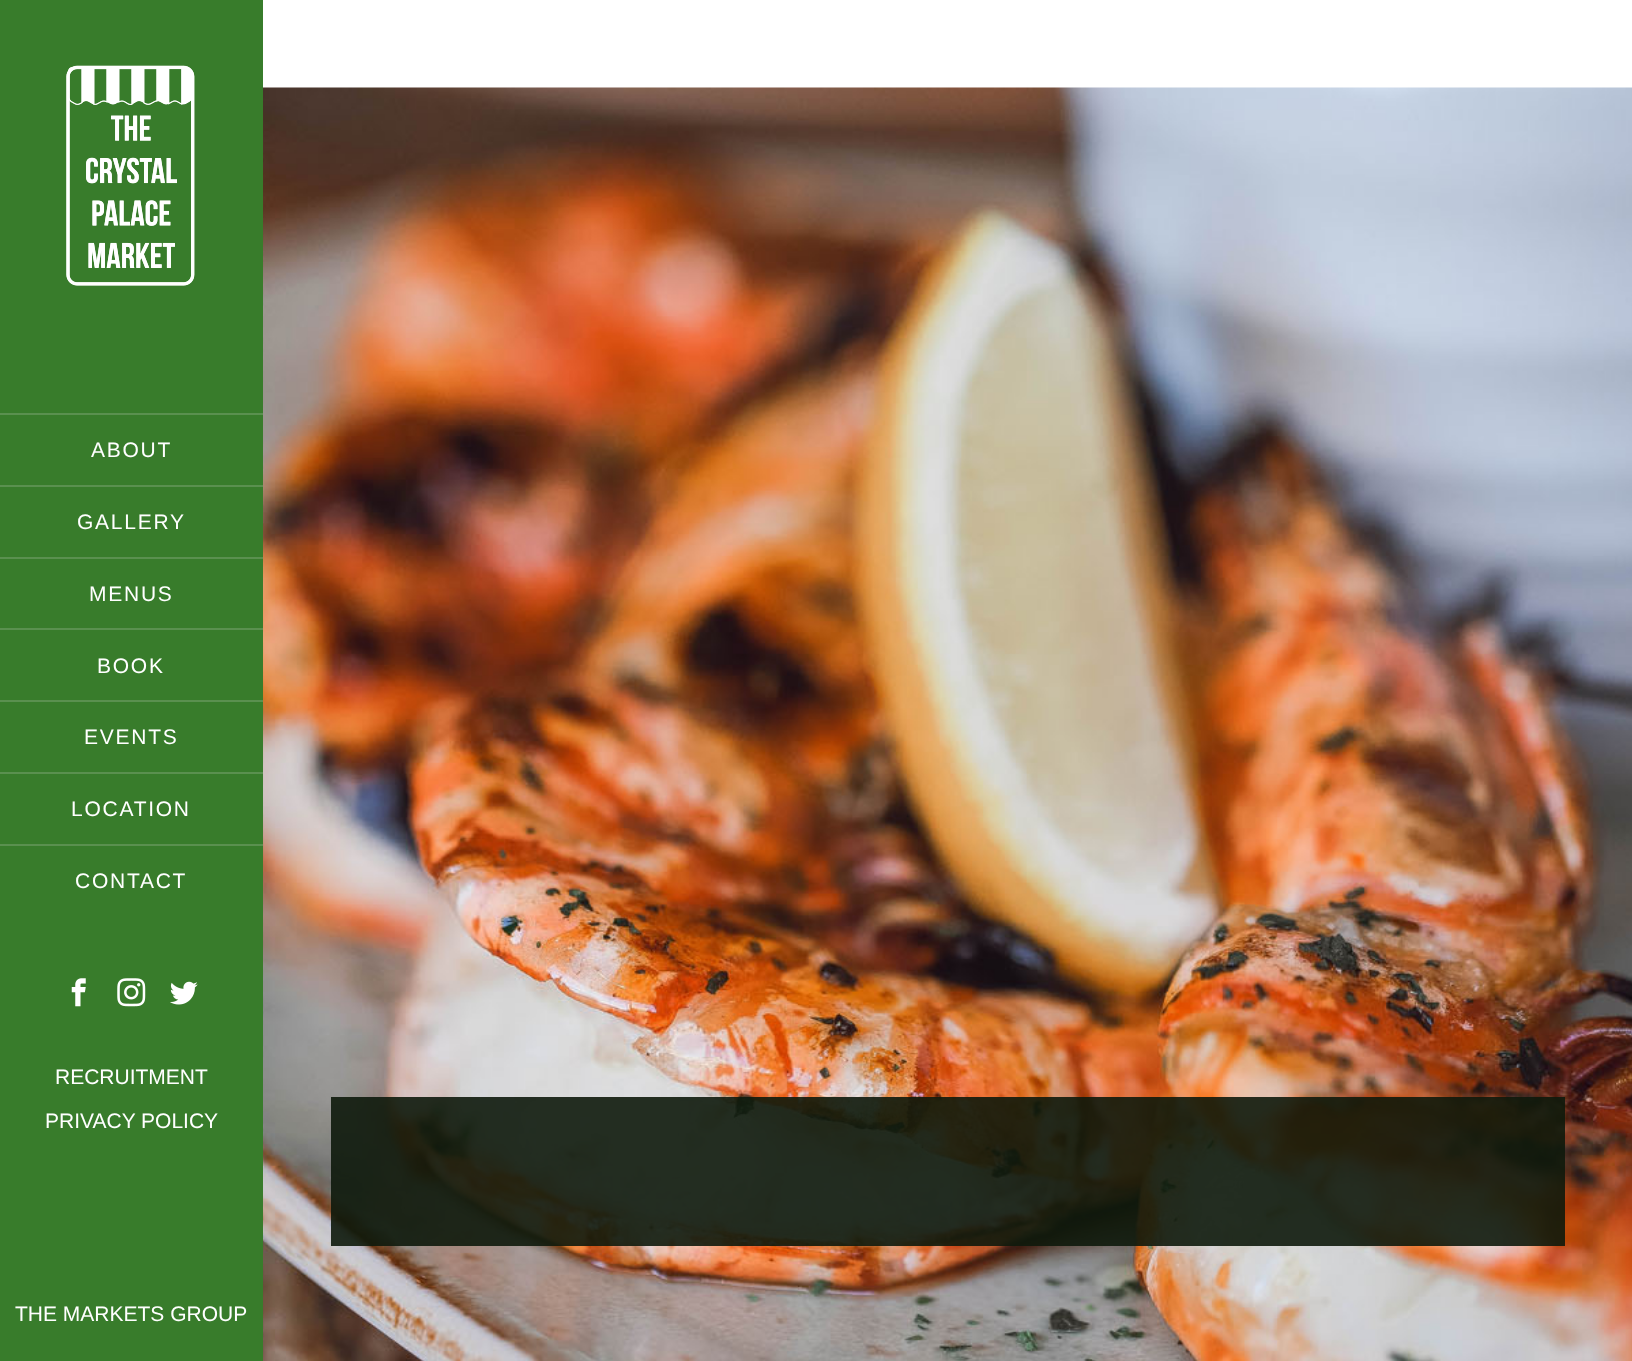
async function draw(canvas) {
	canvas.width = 1632;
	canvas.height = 1361;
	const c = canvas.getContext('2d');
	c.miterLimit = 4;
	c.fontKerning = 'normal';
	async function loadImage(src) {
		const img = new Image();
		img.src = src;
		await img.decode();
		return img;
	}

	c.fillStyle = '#fff';
	c.fillRect(0, 0, 1632, 1361);
	c.fillStyle = '#387c2b';
	c.fillRect(0, 0, 263, 1361);
	c.drawImage(await loadImage('img1.png'), 66, 65, 129, 221);
	c.drawImage(await loadImage('img2.png'), 66, 65, 129, 221);
	c.fillStyle = '#5a904f';
	c.fillRect(0, 413, 263, 2);
	c.letterSpacing = '1.75px';
	c.font = '21px Liberation Sans';
	c.fillStyle = '#fff';
	c.fillText('ABOUT', 91, 457);
	c.fillStyle = '#5a904f';
	c.fillRect(0, 485, 263, 2);
	c.fillStyle = '#fff';
	c.fillText('GALLERY', 77, 529);
	c.fillStyle = '#5a904f';
	c.fillRect(0, 557, 263, 2);
	c.fillStyle = '#fff';
	c.fillText('MENUS', 89, 601);
	c.fillStyle = '#5a904f';
	c.fillRect(0, 628, 263, 2);
	c.fillStyle = '#fff';
	c.fillText('BOOK', 97, 673);
	c.fillStyle = '#5a904f';
	c.fillRect(0, 700, 263, 2);
	c.fillStyle = '#fff';
	c.fillText('EVENTS', 84, 744);
	c.fillStyle = '#5a904f';
	c.fillRect(0, 772, 263, 2);
	c.fillStyle = '#fff';
	c.fillText('LOCATION', 71, 816);
	c.fillStyle = '#5a904f';
	c.fillRect(0, 844, 263, 2);
	c.fillStyle = '#fff';
	c.fillText('CONTACT', 75, 888);
	c.drawImage(await loadImage('img3.png'), 71, 978, 15, 29);
	c.drawImage(await loadImage('img4.png'), 117, 978, 29, 29);
	c.drawImage(await loadImage('img5.png'), 170, 981, 28, 24);
	c.letterSpacing = '0px';
	for (const [text, x, y] of [
		['RECRUITMENT', 55, 1084],
		['PRIVACY POLICY', 45, 1128],
		['THE MARKETS GROUP', 15, 1321],
	]) {
		c.fillText(text, x, y);
	}
	c.drawImage(await loadImage('img6.png'), 263, 87, 1369, 1274);
	c.fillStyle = '#0e1a0ce6';
	c.fillRect(331, 1097, 1234, 149);
}

draw(document.querySelector('canvas'));
